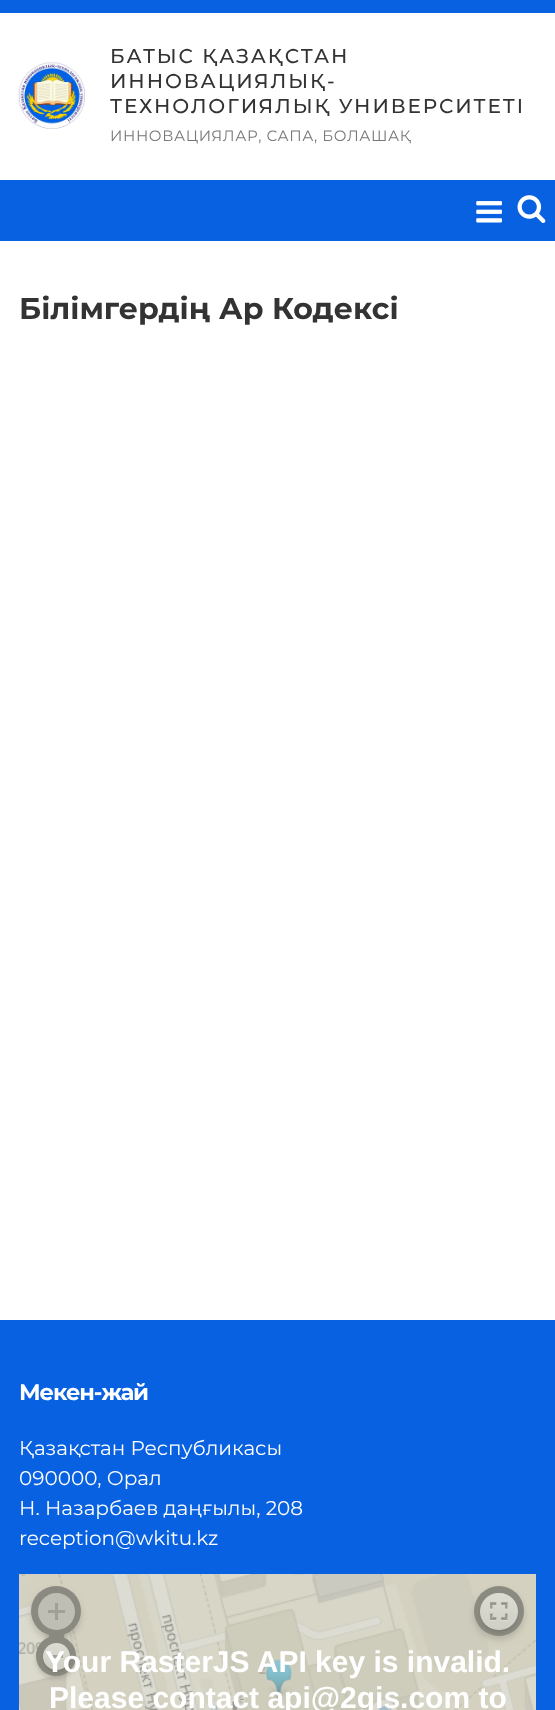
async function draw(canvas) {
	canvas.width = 555;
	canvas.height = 1710;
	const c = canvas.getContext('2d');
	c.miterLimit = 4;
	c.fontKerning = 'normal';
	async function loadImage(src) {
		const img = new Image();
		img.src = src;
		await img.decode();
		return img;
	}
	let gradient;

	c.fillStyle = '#fff';
	c.fillRect(0, 0, 555, 1710);
	c.fillStyle = '#0861e0';
	c.fillRect(0, 0, 555, 13);
	c.drawImage(await loadImage('img1.png'), 18, 62, 67, 67);
	c.letterSpacing = '1.9px';
	c.font = '500 20px Montserrat';
	c.fillStyle = '#333';
	for (const [text, x, y] of [
		['БАТЫС ҚАЗАҚСТАН', 110, 63],
		['ИННОВАЦИЯЛЫҚ-', 110, 88],
		['ТЕХНОЛОГИЯЛЫҚ УНИВЕРСИТЕТІ', 110, 113],
	]) {
		c.fillText(text, x, y);
	}
	c.letterSpacing = '0.6px';
	c.font = '15px Montserrat';
	c.fillStyle = '#777';
	c.fillText('ИННОВАЦИЯЛАР, САПА, БОЛАШАҚ', 110, 141);
	c.fillStyle = '#0861e0';
	c.fillRect(0, 180, 555, 61);
	c.drawImage(await loadImage('img2.png'), 476, 201, 26, 22);
	c.drawImage(await loadImage('img3.png'), 517, 195, 29, 28);
	c.letterSpacing = '0px';
	c.font = 'bold 30px Montserrat';
	c.fillStyle = '#333';
	c.fillText('Білімгердің Ар Кодексі', 19, 319);
	c.fillStyle = '#0861e0';
	c.fillRect(0, 1320, 555, 390);
	c.letterSpacing = '-1.1px';
	c.font = 'bold 22.5px Montserrat';
	c.fillStyle = '#fff';
	c.fillText('Мекен-жай', 19, 1400);
	c.letterSpacing = '0px';
	c.font = '20px Montserrat';
	for (const [text, x, y] of [
		['Қазақстан Республикасы', 19, 1455],
		['090000, Орал', 19, 1485],
		['Н. Назарбаев даңғылы, 208', 19, 1515],
		['reception@wkitu.kz', 19, 1545],
	]) {
		c.fillText(text, x, y);
	}
	c.drawImage(await loadImage('img4.png'), 19, 1574, 234, 136);
	c.drawImage(await loadImage('img5.png'), 253, 1574, 283, 136);
	c.drawImage(await loadImage('img6.png'), 265, 1658, 28, 43);
	c.fillStyle = '#7171684d';
	c.filter = 'blur(3px)';
	c.beginPath();
	c.roundRect(31, 1590, 50, 50, 25);
	c.fill();
	c.filter = 'none';
	c.filter = 'blur(2px)';
	c.beginPath();
	c.rect(46, 1633, 20, 7);
	c.fill();
	c.filter = 'none';
	c.fillStyle = '#8b8a81';
	c.beginPath();
	c.arc(56, 1611, 25, 0, 2 * Math.PI);
	c.fill();
	c.fillStyle = '#bebeb5';
	c.beginPath();
	c.arc(56.5, 1611.5, 18.5, 0, 2 * Math.PI);
	c.fill();
	c.fillStyle = '#a0a097';
	c.fillRect(48, 1610, 17, 3);
	c.fillRect(55, 1603, 3, 17);
	c.fillStyle = '#7171684d';
	c.filter = 'blur(2px)';
	c.beginPath();
	c.roundRect(36, 1639, 40, 40, 20);
	c.fill();
	c.filter = 'none';
	c.fillStyle = '#8b8a81';
	c.beginPath();
	c.arc(56, 1656, 20, 0, 2 * Math.PI);
	c.fill();
	c.fillRect(49, 1635, 15, 3);
	c.fillStyle = '#71716866';
	c.filter = 'blur(1px)';
	c.beginPath();
	c.roundRect(43, 1645, 27, 28, 13.5);
	c.fill();
	c.filter = 'none';
	gradient = c.createLinearGradient(56, 1643, 56, 1670);
	gradient.addColorStop(0, '#dcdcd3');
	gradient.addColorStop(1, '#cfcfc6');
	c.fillStyle = gradient;
	c.beginPath();
	c.arc(56.5, 1656.5, 13.5, 0, 2 * Math.PI);
	c.fill();
	c.fillStyle = '#dcdcd3';
	c.beginPath();
	c.moveTo(50, 1657.5);
	c.lineTo(50, 1659);
	c.lineTo(63, 1659);
	c.lineTo(63, 1656);
	c.lineTo(62.5, 1656);
	c.lineTo(62.5, 1657.5);
	c.closePath();
	c.fill();
	c.fillStyle = '#a4a49b';
	c.fillRect(50, 1655, 13, 3);
	c.fillStyle = '#7171684d';
	c.filter = 'blur(3px)';
	c.beginPath();
	c.roundRect(474, 1590, 50, 50, 25);
	c.fill();
	c.filter = 'none';
	c.fillStyle = '#8b8a81';
	c.beginPath();
	c.arc(499, 1611, 25, 0, 2 * Math.PI);
	c.fill();
	c.fillStyle = '#71716866';
	c.filter = 'blur(1px)';
	c.beginPath();
	c.roundRect(480, 1595, 38, 38, 19);
	c.fill();
	c.filter = 'none';
	gradient = c.createLinearGradient(499, 1593, 499, 1630);
	gradient.addColorStop(0, '#dcdcd3');
	gradient.addColorStop(1, '#cfcfc6');
	c.fillStyle = gradient;
	c.beginPath();
	c.roundRect(480, 1593, 38, 37, 18.5);
	c.fill();
	c.drawImage(await loadImage('img7.png'), 490, 1602, 18, 19);
	c.font = 'bold 30px Liberation Sans';
	c.fillStyle = '#fff';
	c.fillText('Your RasterJS API key is invalid.', 45, 1672);
	c.fillText('Please contact api@2gis.com to', 49, 1708);
}

draw(document.querySelector('canvas'));
